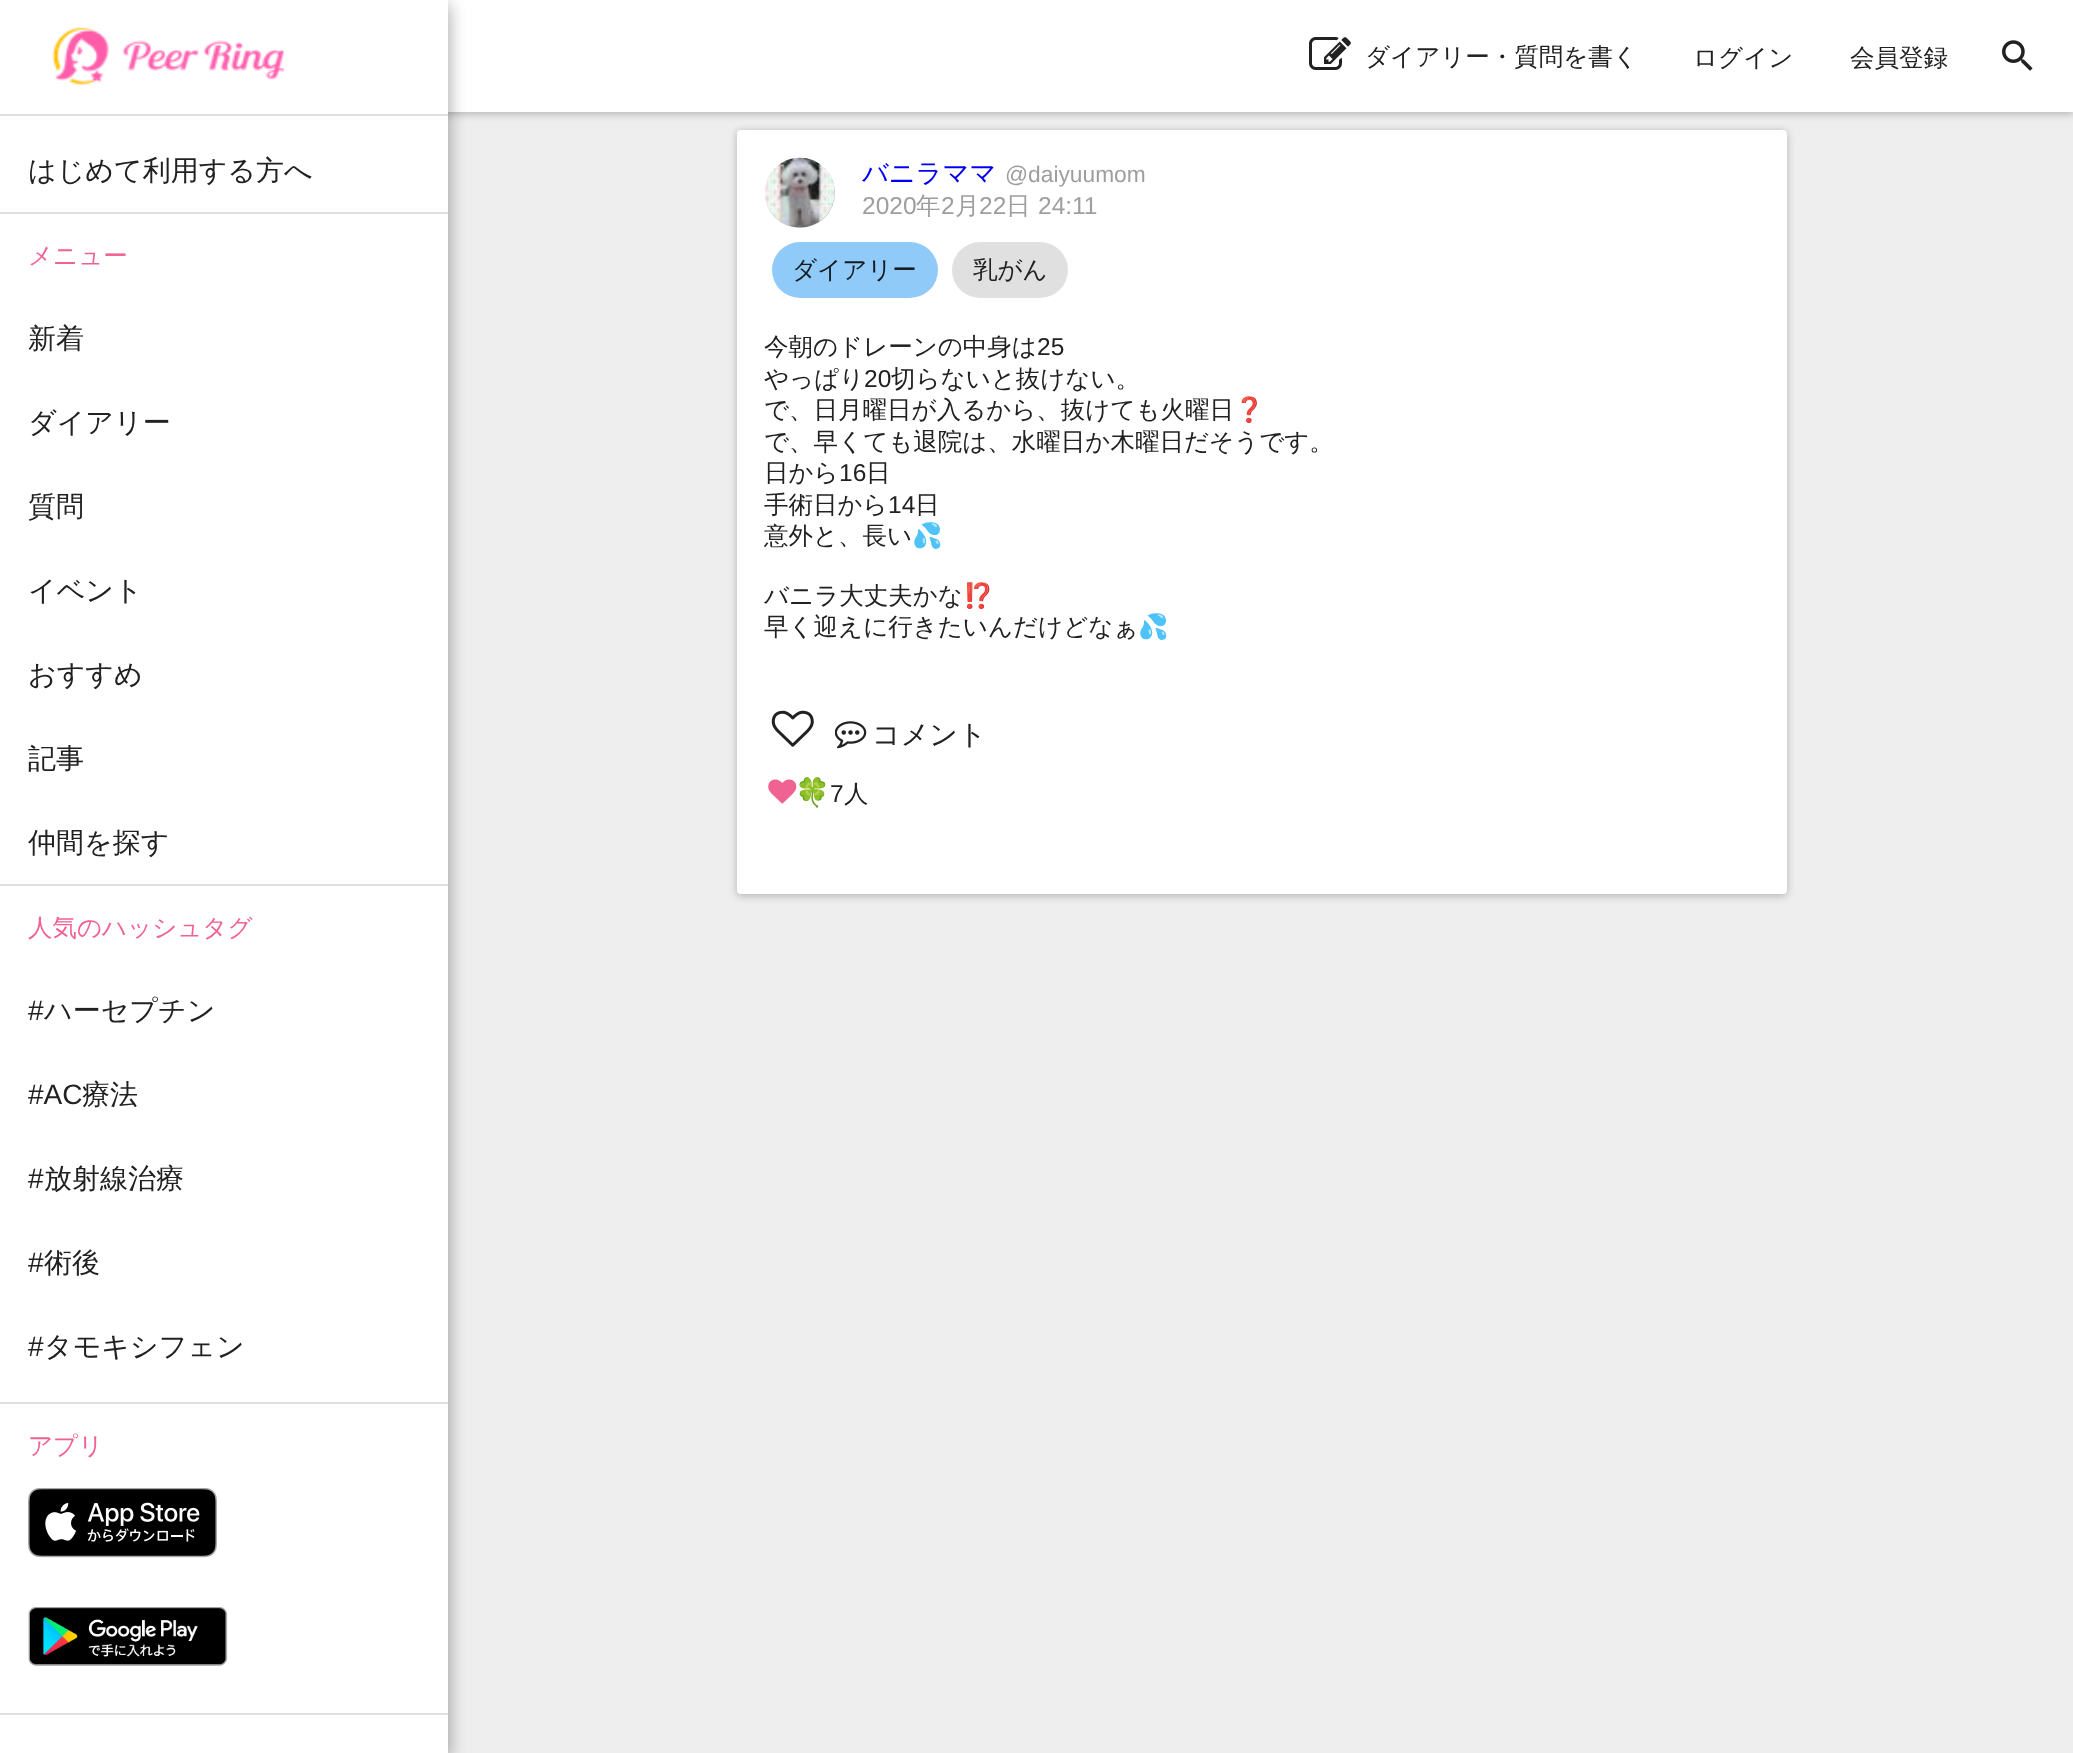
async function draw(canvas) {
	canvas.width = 2073;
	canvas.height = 1753;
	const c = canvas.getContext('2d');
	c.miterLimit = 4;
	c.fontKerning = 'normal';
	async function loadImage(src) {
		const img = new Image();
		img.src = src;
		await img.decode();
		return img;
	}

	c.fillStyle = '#eee';
	c.fillRect(0, 0, 2073, 1753);
	c.fillStyle = '#0000001f';
	c.filter = 'blur(3.5px)';
	c.beginPath();
	c.rect(0, 2, 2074, 112);
	c.fill();
	c.filter = 'none';
	c.filter = 'blur(5px)';
	c.beginPath();
	c.rect(0, 2, 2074, 112);
	c.fill();
	c.filter = 'none';
	c.fillStyle = '#fff';
	c.fillRect(448, 0, 1625, 112);
	c.drawImage(await loadImage('img1.png'), 1309, 37, 42, 33);
	c.font = '500 24.5px WenQuanYi Zen Hei';
	c.fillStyle = '#212121';
	for (const [text, x, y] of [
		['ダイアリー・質問を書く', 1365, 65],
		['ログイン', 1693, 66],
		['会員登録', 1850, 66],
	]) {
		c.fillText(text, x, y);
	}
	c.drawImage(await loadImage('img2.png'), 2002, 40, 31, 31);
	c.fillStyle = '#0000003b';
	c.filter = 'blur(9px)';
	c.beginPath();
	c.rect(0, 5, 448, 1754);
	c.fill();
	c.filter = 'none';
	c.fillStyle = '#00000029';
	c.filter = 'blur(9px)';
	c.beginPath();
	c.rect(0, 5, 448, 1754);
	c.fill();
	c.filter = 'none';
	c.fillStyle = '#fff';
	c.fillRect(0, 0, 448, 1753);
	c.drawImage(await loadImage('img3.png'), 52, 26, 234, 60);
	c.fillStyle = '#e0e0e0';
	c.fillRect(0, 114, 448, 2);
	c.font = '500 28px WenQuanYi Zen Hei';
	c.fillStyle = '#212121';
	c.fillText('はじめて利用する方へ', 28, 180);
	c.fillStyle = '#e0e0e0';
	c.fillRect(0, 212, 448, 2);
	c.font = '500 24.5px WenQuanYi Zen Hei';
	c.fillStyle = '#f06292';
	c.fillText('メニュー', 28, 264);
	c.font = '500 28px WenQuanYi Zen Hei';
	c.fillStyle = '#212121';
	for (const [text, x, y] of [
		['新着', 28, 348],
		['ダイアリー', 28, 432],
		['質問', 28, 516],
		['イベント', 28, 600],
		['おすすめ', 28, 684],
		['記事', 28, 768],
		['仲間を探す', 28, 852],
	]) {
		c.fillText(text, x, y);
	}
	c.fillStyle = '#e0e0e0';
	c.fillRect(0, 884, 448, 2);
	c.font = '500 24.5px WenQuanYi Zen Hei';
	c.fillStyle = '#f06292';
	c.fillText('人気のハッシュタグ', 28, 936);
	c.font = '28px Liberation Sans';
	c.fillStyle = '#212121';
	c.fillText('#', 28, 1020);
	c.font = '500 28px WenQuanYi Zen Hei';
	c.fillText('ハーセプチン', 44, 1020);
	c.font = '28px Liberation Sans';
	c.fillText('#AC', 28, 1104);
	c.font = '500 28px WenQuanYi Zen Hei';
	c.fillText('療法', 82, 1104);
	c.font = '28px Liberation Sans';
	c.fillText('#', 28, 1188);
	c.font = '500 28px WenQuanYi Zen Hei';
	c.fillText('放射線治療', 44, 1188);
	c.font = '28px Liberation Sans';
	c.fillText('#', 28, 1272);
	c.font = '500 28px WenQuanYi Zen Hei';
	c.fillText('術後', 44, 1272);
	c.font = '28px Liberation Sans';
	c.fillText('#', 28, 1356);
	c.font = '500 28px WenQuanYi Zen Hei';
	c.fillText('タモキシフェン', 44, 1356);
	c.fillStyle = '#e0e0e0';
	c.fillRect(0, 1402, 448, 2);
	c.font = '500 24.5px WenQuanYi Zen Hei';
	c.fillStyle = '#f06292';
	c.fillText('アプリ', 28, 1454);
	c.drawImage(await loadImage('img4.png'), 28, 1488, 189, 70);
	c.drawImage(await loadImage('img5.png'), 28, 1607, 200, 59);
	c.fillStyle = '#e0e0e0';
	c.fillRect(0, 1713, 448, 2);
	c.fillStyle = '#0000001f';
	c.filter = 'blur(3.5px)';
	c.beginPath();
	c.roundRect(737, 131, 1050, 765, 4);
	c.fill();
	c.filter = 'none';
	c.filter = 'blur(5px)';
	c.beginPath();
	c.roundRect(737, 131, 1050, 765, 4);
	c.fill();
	c.filter = 'none';
	c.fillStyle = '#fff';
	c.beginPath();
	c.roundRect(737, 130, 1050, 764, 4);
	c.fill();
	c.fillStyle = '#bcbcbc';
	c.beginPath();
	c.arc(800, 193, 35, 0, 2 * Math.PI);
	c.fill();
	c.drawImage(await loadImage('img6.png'), 765, 157, 70, 71);
	c.font = '500 26.25px WenQuanYi Zen Hei';
	c.fillStyle = '#00e';
	c.fillText('バニラママ', 862, 182);
	c.font = '22.75px Liberation Sans';
	c.fillStyle = '#9e9e9e';
	c.fillText('@daiyuumom', 1005, 182);
	c.font = '24.5px Liberation Sans';
	c.fillText('2020', 862, 214);
	c.font = '500 24.5px WenQuanYi Zen Hei';
	c.fillText('年', 916, 214);
	c.font = '24.5px Liberation Sans';
	c.fillText('2', 941, 214);
	c.font = '500 24.5px WenQuanYi Zen Hei';
	c.fillText('月', 955, 214);
	c.font = '24.5px Liberation Sans';
	c.fillText('22', 979, 214);
	c.font = '500 24.5px WenQuanYi Zen Hei';
	c.fillText('日', 1006, 214);
	c.font = '24.5px Liberation Sans';
	c.fillText('24:11', 1038, 214);
	c.fillStyle = '#90caf9';
	c.beginPath();
	c.roundRect(772, 242, 166, 56, 28);
	c.fill();
	c.font = '500 24.5px WenQuanYi Zen Hei';
	c.fillStyle = '#131a20';
	c.fillText('ダイアリー', 792, 278);
	c.fillStyle = '#e0e0e0';
	c.beginPath();
	c.roundRect(952, 242, 116, 56, 28);
	c.fill();
	c.fillStyle = '#212121';
	c.fillText('乳がん', 973, 278);
	c.fillText('今朝のドレーンの中身は', 764, 355);
	c.font = '24.5px Liberation Sans';
	c.fillText('25', 1037, 355);
	c.font = '500 24.5px WenQuanYi Zen Hei';
	c.fillText('やっぱり', 764, 387);
	c.font = '24.5px Liberation Sans';
	c.fillText('20', 864, 387);
	c.font = '500 24.5px WenQuanYi Zen Hei';
	c.fillText('切らないと抜けない。', 891, 387);
	c.fillText('で、日月曜日が入るから、抜けても火曜日', 764, 418);
	c.font = '24.5px Noto Color Emoji';
	c.fillText('❓', 1234, 418);
	c.font = '500 24.5px WenQuanYi Zen Hei';
	c.fillText('で、早くても退院は、水曜日か木曜日だそうです。', 764, 450);
	c.fillText('日から', 764, 481);
	c.font = '24.5px Liberation Sans';
	c.fillText('16', 839, 481);
	c.font = '500 24.5px WenQuanYi Zen Hei';
	c.fillText('日', 866, 481);
	c.fillText('手術日から', 764, 513);
	c.font = '24.5px Liberation Sans';
	c.fillText('14', 888, 513);
	c.font = '500 24.5px WenQuanYi Zen Hei';
	c.fillText('日', 915, 513);
	c.fillText('意外と、長い', 764, 544);
	c.font = '24.5px Noto Color Emoji';
	c.fillText('💦', 912, 544);
	c.font = '500 24.5px WenQuanYi Zen Hei';
	c.fillText('バニラ大丈夫かな', 764, 604);
	c.font = '24.5px Noto Color Emoji';
	c.fillText('⁉️', 963, 604);
	c.font = '500 24.5px WenQuanYi Zen Hei';
	c.fillText('早く迎えに行きたいんだけどなぁ', 764, 635);
	c.font = '24.5px Noto Color Emoji';
	c.fillText('💦', 1138, 635);
	c.drawImage(await loadImage('img7.png'), 771, 710, 43, 37);
	c.drawImage(await loadImage('img8.png'), 835, 721, 32, 28);
	c.font = '500 28px WenQuanYi Zen Hei';
	c.fillText('コメント', 872, 744);
	c.drawImage(await loadImage('img9.png'), 768, 779, 29, 25);
	c.font = '28px Noto Color Emoji';
	c.fillStyle = '#4caf50';
	c.fillText('🍀', 795, 802);
	c.font = '24.5px Liberation Sans';
	c.fillStyle = '#212121';
	c.fillText('7', 830, 802);
	c.font = '500 24.5px WenQuanYi Zen Hei';
	c.fillText('人', 844, 802);
}

draw(document.querySelector('canvas'));
